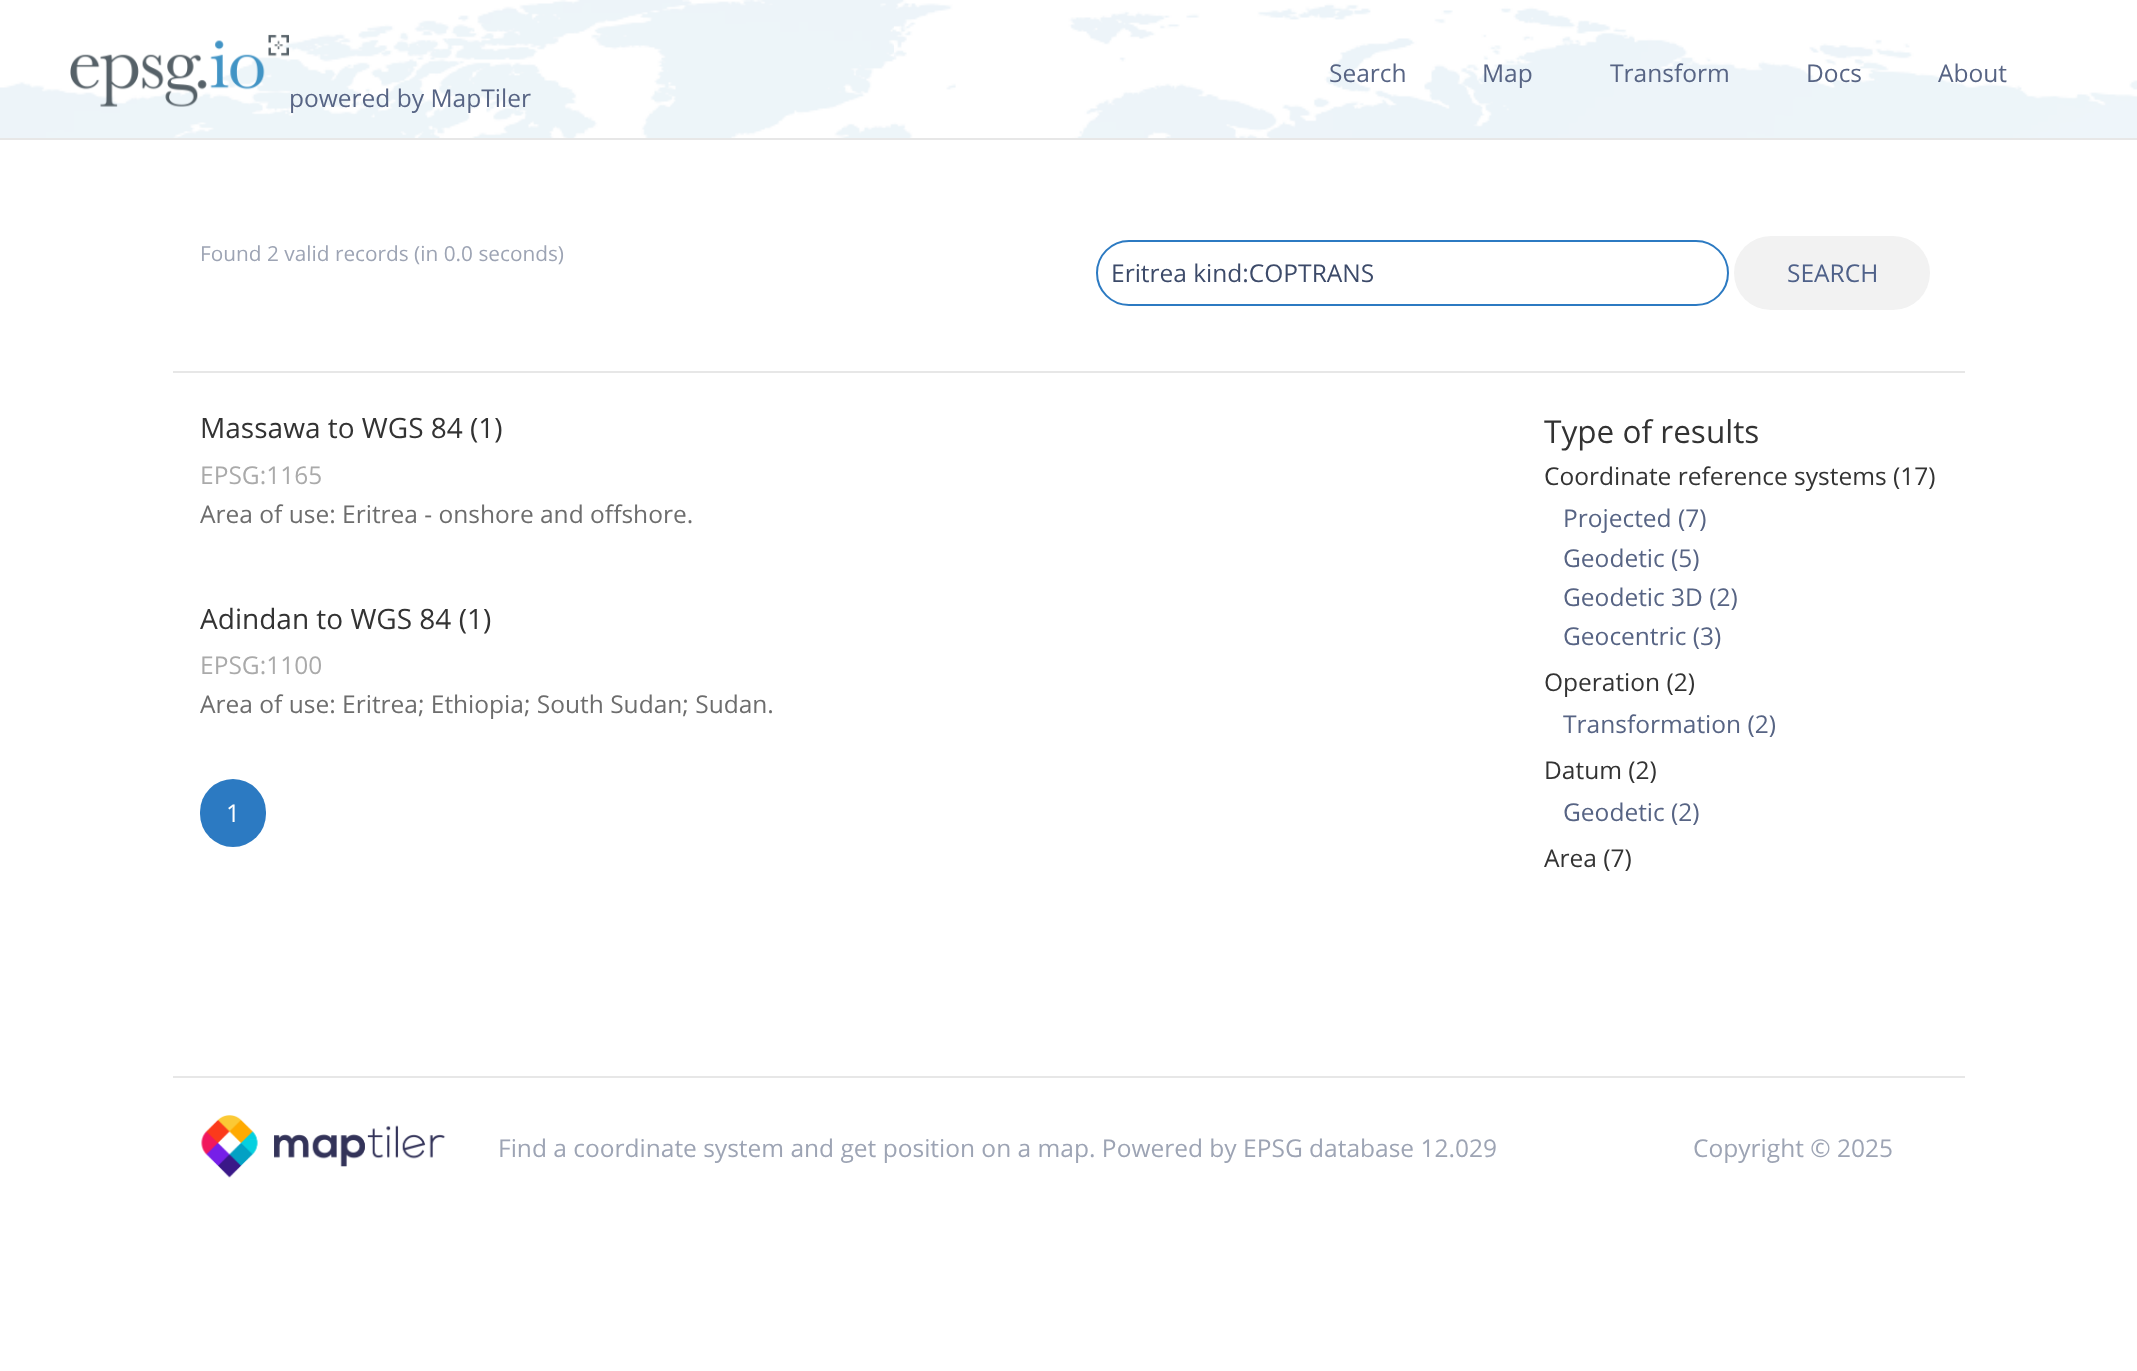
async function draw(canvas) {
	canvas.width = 2137;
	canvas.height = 1371;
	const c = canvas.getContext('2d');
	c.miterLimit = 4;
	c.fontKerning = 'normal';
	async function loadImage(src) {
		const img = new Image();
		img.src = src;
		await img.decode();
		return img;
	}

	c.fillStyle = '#fff';
	c.fillRect(0, 0, 2137, 1371);
	c.drawImage(await loadImage('img1.png'), 0, 0, 2137, 138);
	c.fillStyle = '#e7e7e7';
	c.fillRect(0, 138, 2137, 2);
	c.font = '24.5px Open Sans';
	c.fillStyle = '#576484';
	for (const [text, x, y] of [
		['Search', 1329, 82],
		['Map', 1482, 82],
		['Transform', 1610, 82],
		['Docs', 1806, 82],
		['About', 1938, 82],
	]) {
		c.fillText(text, x, y);
	}
	c.drawImage(await loadImage('img2.png'), 70, 34, 219, 73);
	c.fillText('powered by MapTiler', 289, 107);
	c.fillStyle = '#e7e7e7';
	c.fillRect(173, 371, 1792, 2);
	c.font = '20.8px Open Sans';
	c.fillStyle = '#9da4b4';
	c.fillText('Found 2 valid records (in 0.0 seconds)', 200, 261);
	c.beginPath();
	c.roundRect(1097, 241, 631, 64, 32);
	c.strokeStyle = '#2c7ac2';
	c.lineWidth = 2;
	c.stroke();
	c.font = '24.5px Open Sans';
	c.fillStyle = '#3c4a69';
	c.fillText('Eritrea kind:COPTRANS', 1111, 282);
	c.fillStyle = '#f2f2f2';
	c.beginPath();
	c.roundRect(1734, 236, 196, 74, 37);
	c.fill();
	c.fillStyle = '#4f6189';
	c.fillText('SEARCH', 1787, 282);
	c.font = '28px Open Sans';
	c.fillStyle = '#333';
	c.fillText('Massawa to WGS 84 (1)', 200, 438);
	c.font = '24.5px Open Sans';
	c.fillStyle = '#aaa';
	c.fillText('EPSG:1165', 200, 484);
	c.fillStyle = '#6d6d6d';
	c.fillText('Area of use: Eritrea - onshore and offshore.', 200, 523);
	c.font = '28px Open Sans';
	c.fillStyle = '#333';
	c.fillText('Adindan to WGS 84 (1)', 200, 629);
	c.font = '24.5px Open Sans';
	c.fillStyle = '#aaa';
	c.fillText('EPSG:1100', 200, 674);
	c.fillStyle = '#6d6d6d';
	c.fillText('Area of use: Eritrea; Ethiopia; South Sudan; Sudan.', 200, 713);
	c.fillStyle = '#2c7ac2';
	c.beginPath();
	c.roundRect(200, 779, 66, 68, 33);
	c.fill();
	c.fillStyle = '#fff';
	c.fillText('1', 226, 822);
	c.font = '31.5px Open Sans';
	c.fillStyle = '#333';
	c.fillText('Type of results', 1544, 443);
	c.font = '24.5px Open Sans';
	c.fillText('Coordinate reference systems (17)', 1544, 485);
	c.fillStyle = '#576484';
	for (const [text, x, y] of [
		['Projected (7)', 1563, 527],
		['Geodetic (5)', 1563, 567],
		['Geodetic 3D (2)', 1563, 606],
		['Geocentric (3)', 1563, 645],
	]) {
		c.fillText(text, x, y);
	}
	c.fillStyle = '#333';
	c.fillText('Operation (2)', 1544, 691);
	c.fillStyle = '#576484';
	c.fillText('Transformation (2)', 1563, 733);
	c.fillStyle = '#333';
	c.fillText('Datum (2)', 1544, 779);
	c.fillStyle = '#576484';
	c.fillText('Geodetic (2)', 1563, 821);
	c.fillStyle = '#333';
	c.fillText('Area (7)', 1544, 867);
	c.fillStyle = '#e7e7e7';
	c.fillRect(173, 1076, 1792, 2);
	c.drawImage(await loadImage('img3.png'), 201, 1115, 245, 63);
	c.fillStyle = '#9da4b4';
	c.fillText('Find a coordinate system and get position on a map. Powered by EPSG database 12.029', 498, 1157);
	c.fillText('Copyright © 2025', 1693, 1157);
}

draw(document.querySelector('canvas'));
